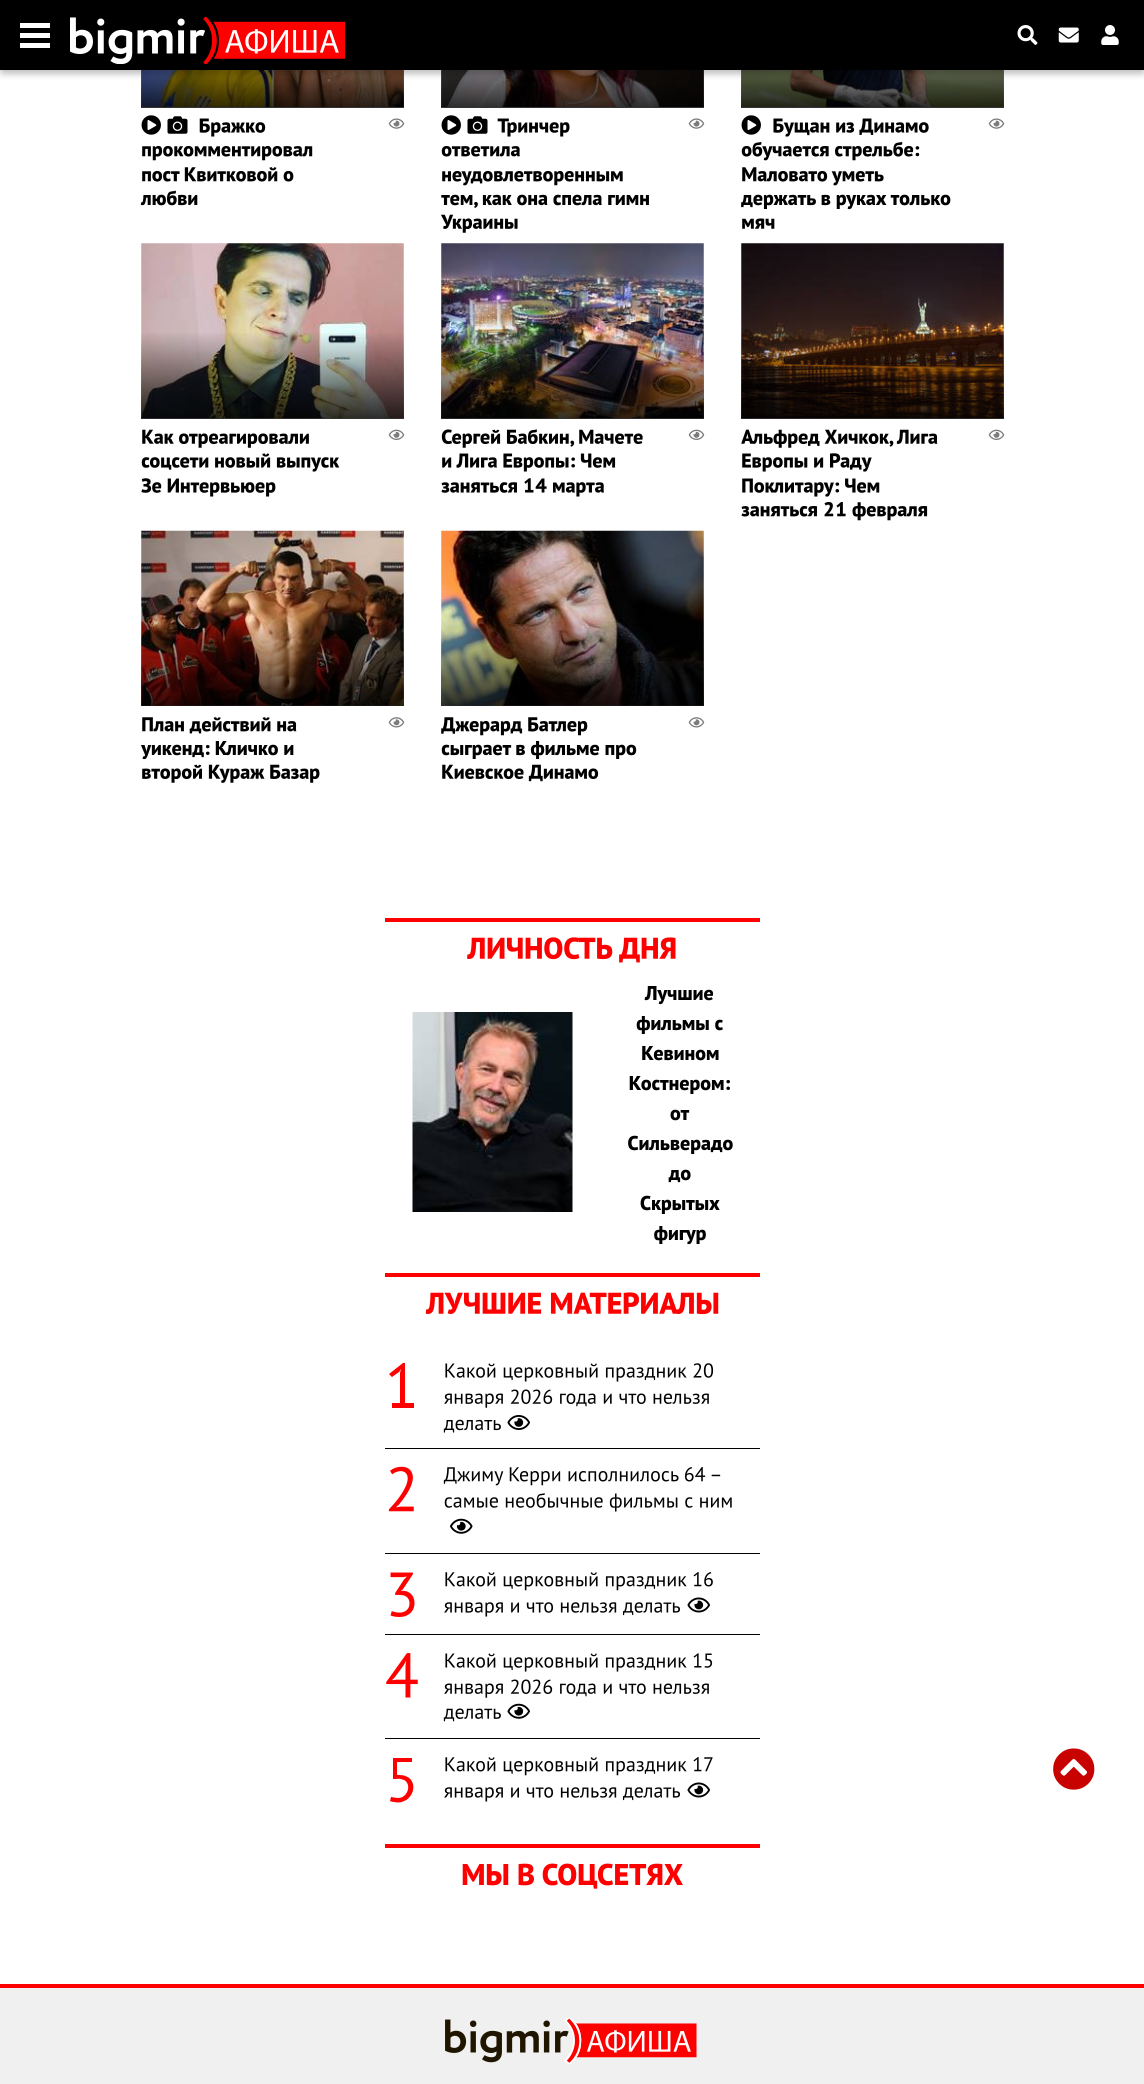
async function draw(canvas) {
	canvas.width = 1144;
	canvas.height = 2084;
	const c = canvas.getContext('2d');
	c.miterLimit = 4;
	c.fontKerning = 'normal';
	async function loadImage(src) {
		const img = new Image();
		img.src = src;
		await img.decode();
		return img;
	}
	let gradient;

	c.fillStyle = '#fff';
	c.fillRect(0, 0, 1144, 2084);
	c.drawImage(await loadImage('img5.png'), 141, 70, 263, 37);
	gradient = c.createLinearGradient(273, 20, 273, 108);
	gradient.addColorStop(0, '#00000000');
	gradient.addColorStop(1, '#000000cc');
	c.fillStyle = gradient;
	c.fillRect(141, 70, 263, 38);
	c.drawImage(await loadImage('img13.png'), 441, 70, 263, 37);
	gradient = c.createLinearGradient(573, 20, 573, 108);
	gradient.addColorStop(0, '#00000000');
	gradient.addColorStop(1, '#000000cc');
	c.fillStyle = gradient;
	c.fillRect(441, 70, 263, 38);
	c.drawImage(await loadImage('img19.png'), 741, 70, 263, 37);
	gradient = c.createLinearGradient(873, 20, 873, 108);
	gradient.addColorStop(0, '#00000000');
	gradient.addColorStop(1, '#000000cc');
	c.fillStyle = gradient;
	c.fillRect(741, 70, 263, 38);
	c.fillStyle = '#00000040';
	c.filter = 'blur(3px)';
	c.beginPath();
	c.rect(0, 4, 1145, 70);
	c.fill();
	c.filter = 'none';
	for (const [x, y, w, h, color] of [
		[0, 0, 1144, 70, '#000'],
		[20, 33, 30, 5, '#fff'],
		[20, 23, 30, 5, '#fff'],
		[20, 43, 30, 5, '#fff'],
	]) {
		c.fillStyle = color;
		c.fillRect(x, y, w, h);
	}
	c.drawImage(await loadImage('img1.png'), 70, 16, 275, 48);
	c.drawImage(await loadImage('img2.png'), 1017, 25, 21, 20);
	c.drawImage(await loadImage('img3.png'), 1058, 27, 21, 16);
	c.drawImage(await loadImage('img4.png'), 1101, 25, 18, 20);
	c.drawImage(await loadImage('img6.png'), 141, 115, 20, 20);
	c.drawImage(await loadImage('img7.png'), 167, 116, 21, 18);
	c.drawImage(await loadImage('img8.png'), 199, 118, 67, 19);
	c.drawImage(await loadImage('img9.png'), 142, 146, 171, 15);
	c.drawImage(await loadImage('img10.png'), 142, 167, 152, 15);
	c.drawImage(await loadImage('img11.png'), 140, 190, 58, 16);
	c.drawImage(await loadImage('img12.png'), 388, 118, 17, 11);
	c.drawImage(await loadImage('img6.png'), 441, 115, 20, 20);
	c.drawImage(await loadImage('img7.png'), 467, 116, 21, 18);
	c.drawImage(await loadImage('img14.png'), 497, 118, 73, 19);
	c.drawImage(await loadImage('img15.png'), 441, 146, 79, 11);
	c.drawImage(await loadImage('img16.png'), 442, 171, 181, 15);
	c.drawImage(await loadImage('img17.png'), 441, 194, 208, 14);
	c.drawImage(await loadImage('img18.png'), 441, 214, 77, 19);
	c.drawImage(await loadImage('img12.png'), 688, 118, 17, 11);
	c.drawImage(await loadImage('img6.png'), 741, 115, 20, 20);
	c.drawImage(await loadImage('img20.png'), 773, 118, 156, 19);
	c.drawImage(await loadImage('img21.png'), 741, 141, 179, 20);
	c.drawImage(await loadImage('img22.png'), 742, 167, 142, 19);
	c.drawImage(await loadImage('img23.png'), 741, 194, 210, 16);
	c.drawImage(await loadImage('img24.png'), 742, 218, 33, 11);
	c.drawImage(await loadImage('img12.png'), 988, 118, 17, 11);
	c.drawImage(await loadImage('img25.png'), 141, 243, 263, 176);
	gradient = c.createLinearGradient(273, 331, 273, 419);
	gradient.addColorStop(0, '#00000000');
	gradient.addColorStop(1, '#000000cc');
	c.fillStyle = gradient;
	c.fillRect(141, 333, 263, 86);
	c.drawImage(await loadImage('img26.png'), 142, 429, 167, 19);
	c.drawImage(await loadImage('img27.png'), 141, 453, 199, 19);
	c.drawImage(await loadImage('img28.png'), 141, 478, 135, 19);
	c.drawImage(await loadImage('img29.png'), 388, 429, 17, 11);
	c.drawImage(await loadImage('img30.png'), 441, 243, 263, 176);
	gradient = c.createLinearGradient(573, 331, 573, 419);
	gradient.addColorStop(0, '#00000000');
	gradient.addColorStop(1, '#000000cc');
	c.fillStyle = gradient;
	c.fillRect(441, 333, 263, 86);
	c.drawImage(await loadImage('img31.png'), 441, 429, 202, 19);
	c.drawImage(await loadImage('img32.png'), 442, 453, 174, 19);
	c.drawImage(await loadImage('img33.png'), 441, 478, 163, 19);
	c.drawImage(await loadImage('img29.png'), 688, 429, 17, 11);
	c.drawImage(await loadImage('img34.png'), 741, 243, 263, 176);
	gradient = c.createLinearGradient(873, 331, 873, 419);
	gradient.addColorStop(0, '#00000000');
	gradient.addColorStop(1, '#000000cc');
	c.fillStyle = gradient;
	c.fillRect(741, 333, 263, 86);
	c.drawImage(await loadImage('img35.png'), 741, 429, 197, 19);
	c.drawImage(await loadImage('img36.png'), 742, 453, 130, 19);
	c.drawImage(await loadImage('img37.png'), 742, 478, 138, 19);
	c.drawImage(await loadImage('img38.png'), 741, 502, 187, 19);
	c.drawImage(await loadImage('img29.png'), 988, 429, 17, 11);
	c.drawImage(await loadImage('img39.png'), 141, 530, 263, 176);
	gradient = c.createLinearGradient(273, 619, 273, 706);
	gradient.addColorStop(0, '#00000000');
	gradient.addColorStop(1, '#000000cc');
	c.fillStyle = gradient;
	c.fillRect(141, 621, 263, 85);
	c.drawImage(await loadImage('img40.png'), 142, 717, 155, 17);
	c.drawImage(await loadImage('img41.png'), 141, 741, 153, 19);
	c.drawImage(await loadImage('img42.png'), 142, 764, 178, 19);
	c.drawImage(await loadImage('img43.png'), 388, 717, 17, 11);
	c.drawImage(await loadImage('img44.png'), 441, 530, 263, 176);
	gradient = c.createLinearGradient(573, 619, 573, 706);
	gradient.addColorStop(0, '#00000000');
	gradient.addColorStop(1, '#000000cc');
	c.fillStyle = gradient;
	c.fillRect(441, 621, 263, 85);
	c.drawImage(await loadImage('img45.png'), 441, 717, 147, 19);
	c.drawImage(await loadImage('img46.png'), 441, 741, 196, 18);
	c.drawImage(await loadImage('img47.png'), 442, 764, 157, 18);
	c.drawImage(await loadImage('img43.png'), 688, 717, 17, 11);
	c.fillStyle = '#f00';
	c.fillRect(385, 918, 375, 4);
	c.drawImage(await loadImage('img48.png'), 467, 937, 209, 26);
	c.drawImage(await loadImage('img49.png'), 412, 1012, 161, 200);
	c.drawImage(await loadImage('img50.png'), 644, 986, 70, 19);
	c.drawImage(await loadImage('img51.png'), 636, 1016, 87, 18);
	c.drawImage(await loadImage('img52.png'), 642, 1046, 77, 15);
	c.drawImage(await loadImage('img53.png'), 629, 1076, 101, 18);
	c.drawImage(await loadImage('img54.png'), 670, 1109, 20, 12);
	c.drawImage(await loadImage('img55.png'), 628, 1135, 105, 19);
	c.drawImage(await loadImage('img56.png'), 668, 1169, 23, 14);
	c.drawImage(await loadImage('img57.png'), 640, 1195, 80, 19);
	c.drawImage(await loadImage('img58.png'), 654, 1226, 52, 19);
	c.fillRect(385, 1273, 375, 4);
	c.drawImage(await loadImage('img59.png'), 425, 1292, 294, 23);
	c.fillStyle = '#000';
	c.fillRect(385, 1448, 375, 1);
	c.fillStyle = '#f00';
	c.beginPath();
	c.moveTo(392, 1408);
	c.lineTo(414, 1408);
	c.lineTo(414, 1403);
	c.lineTo(405, 1403);
	c.lineTo(405, 1363);
	c.lineTo(403, 1363);
	c.lineTo(389, 1374);
	c.lineTo(392, 1377);
	c.lineTo(399, 1372);
	c.lineTo(401, 1369);
	c.lineTo(400, 1373);
	c.lineTo(400, 1403);
	c.lineTo(392, 1403);
	c.closePath();
	c.fill();
	c.drawImage(await loadImage('img60.png'), 445, 1363, 269, 19);
	c.drawImage(await loadImage('img61.png'), 444, 1389, 265, 19);
	c.drawImage(await loadImage('img62.png'), 443, 1419, 58, 14);
	c.drawImage(await loadImage('img63.png'), 507, 1415, 23, 15);
	c.fillStyle = '#000';
	c.fillRect(385, 1553, 375, 1);
	c.drawImage(await loadImage('img64.png'), 388, 1466, 26, 46);
	c.drawImage(await loadImage('img65.png'), 443, 1467, 278, 19);
	c.drawImage(await loadImage('img66.png'), 444, 1493, 288, 19);
	c.drawImage(await loadImage('img67.png'), 450, 1518, 23, 16);
	c.fillRect(385, 1634, 375, 1);
	c.drawImage(await loadImage('img68.png'), 390, 1572, 25, 45);
	c.drawImage(await loadImage('img69.png'), 445, 1572, 268, 19);
	c.drawImage(await loadImage('img70.png'), 444, 1602, 236, 15);
	c.drawImage(await loadImage('img71.png'), 687, 1597, 23, 16);
	c.fillRect(385, 1738, 375, 1);
	c.drawImage(await loadImage('img72.png'), 386, 1653, 32, 45);
	c.drawImage(await loadImage('img73.png'), 445, 1653, 268, 19);
	c.drawImage(await loadImage('img61.png'), 444, 1679, 265, 19);
	c.drawImage(await loadImage('img74.png'), 443, 1708, 58, 14);
	c.drawImage(await loadImage('img75.png'), 507, 1703, 23, 16);
	c.fillStyle = '#f00';
	c.beginPath();
	c.moveTo(398, 1798);
	c.bezierCurveTo(395, 1798, 393, 1797, 391, 1797);
	c.lineTo(390, 1801);
	c.bezierCurveTo(415, 1810, 424, 1773, 397, 1775);
	c.lineTo(397, 1762);
	c.lineTo(412, 1762);
	c.lineTo(412, 1758);
	c.lineTo(393, 1758);
	c.lineTo(393, 1779);
	c.bezierCurveTo(396, 1779, 400, 1778, 404, 1780);
	c.bezierCurveTo(412, 1784, 408, 1798, 398, 1798);
	c.closePath();
	c.fill();
	c.drawImage(await loadImage('img76.png'), 445, 1757, 268, 19);
	c.drawImage(await loadImage('img70.png'), 444, 1787, 236, 15);
	c.drawImage(await loadImage('img71.png'), 687, 1782, 23, 16);
	c.fillRect(385, 1844, 375, 4);
	c.drawImage(await loadImage('img77.png'), 462, 1863, 221, 26);
	c.drawImage(await loadImage('img78.png'), 1053, 1748, 42, 42);
	c.fillStyle = '#f0f0f0';
	c.fillRect(0, 1988, 1144, 96);
	c.fillStyle = '#f00';
	c.fillRect(0, 1984, 1144, 4);
	c.drawImage(await loadImage('img79.png'), 445, 2018, 252, 46);
}

draw(document.querySelector('canvas'));
